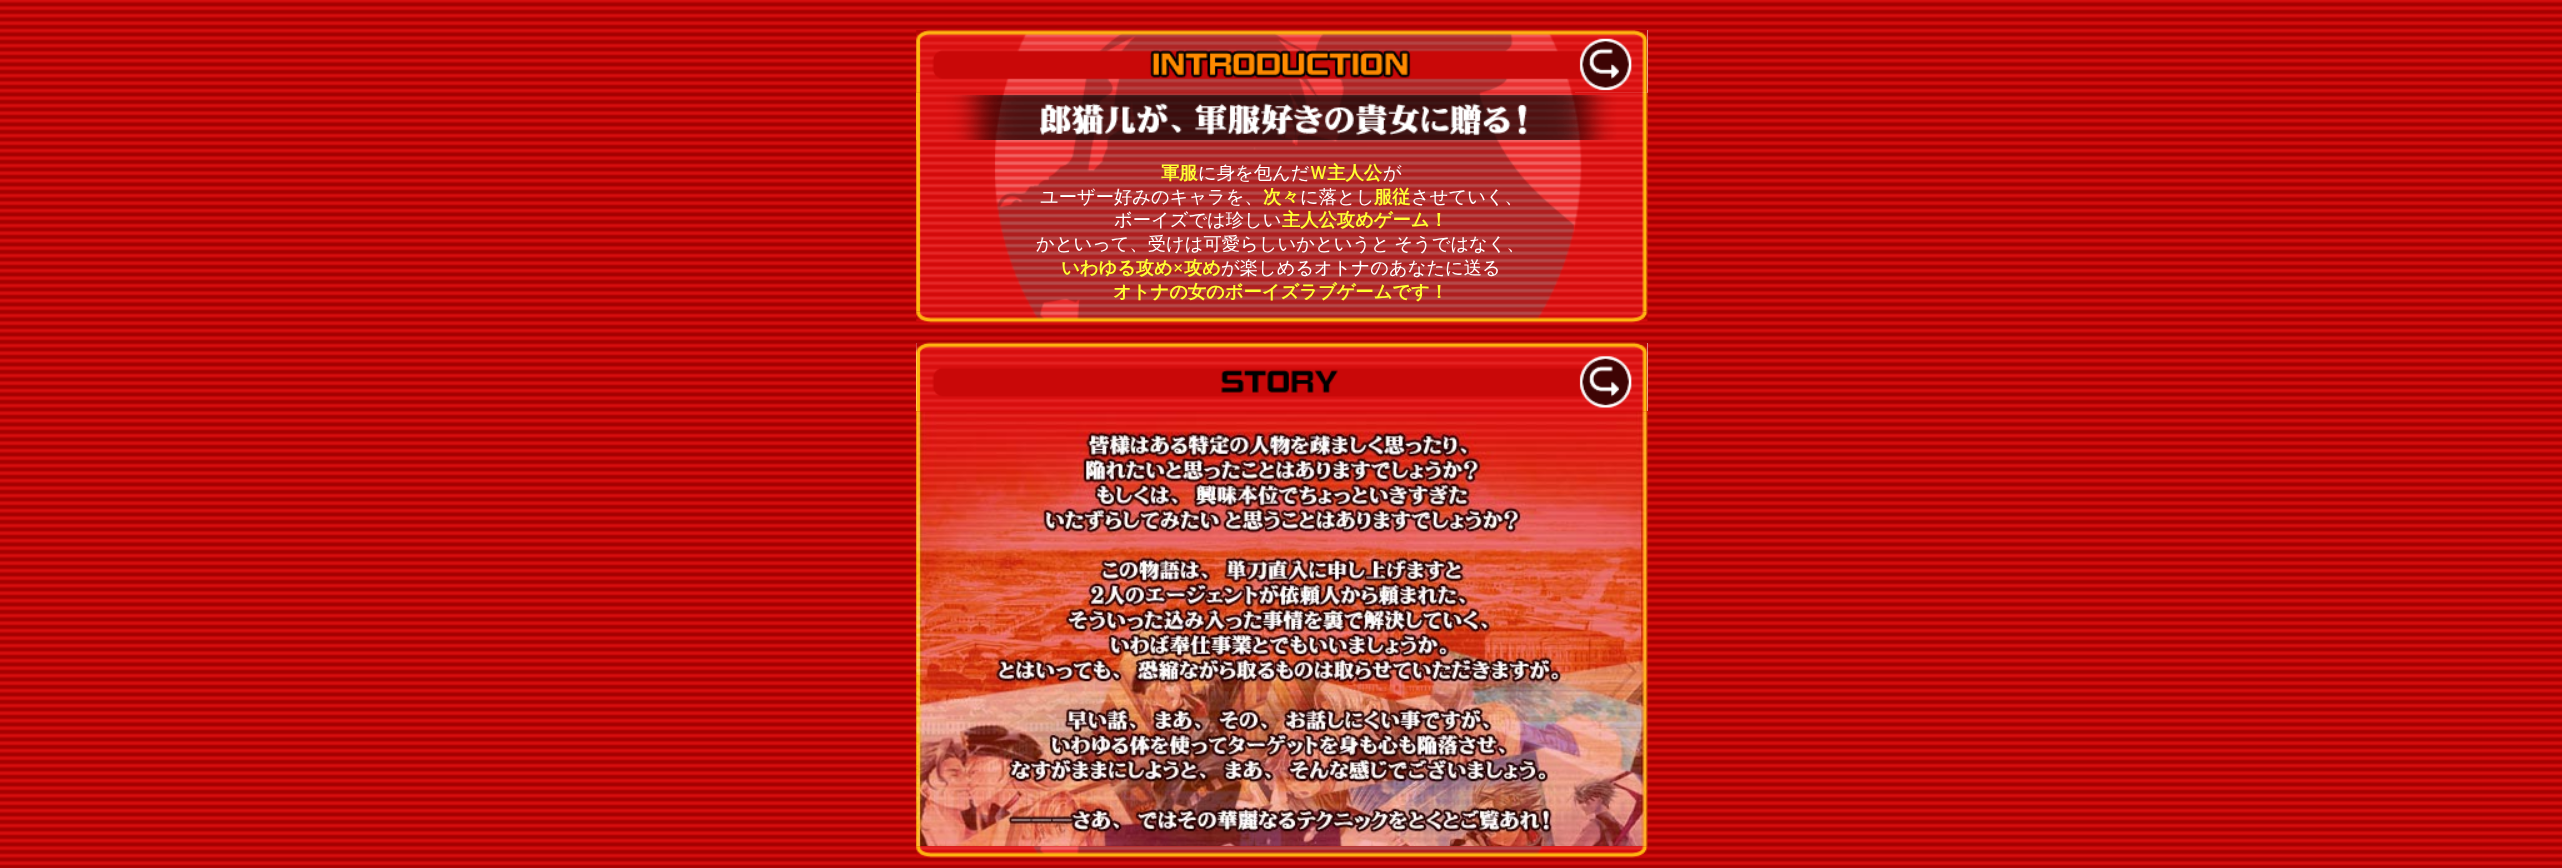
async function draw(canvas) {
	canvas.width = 2562;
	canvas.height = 868;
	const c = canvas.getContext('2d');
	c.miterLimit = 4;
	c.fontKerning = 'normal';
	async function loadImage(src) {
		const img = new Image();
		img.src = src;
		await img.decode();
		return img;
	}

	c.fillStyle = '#fff';
	c.fillRect(0, 0, 2562, 868);
	c.drawImage(await loadImage('img1.png'), 0, 0, 2562, 868);
	c.fillRect(1575, 30, 73, 63);
	c.drawImage(await loadImage('img4.png'), 916, 92, 732, 220);
	c.drawImage(await loadImage('img2.png'), 916, 30, 659, 63);
	c.drawImage(await loadImage('img3.png'), 1575, 30, 73, 63);
	c.drawImage(await loadImage('img5.png'), 916, 92, 732, 48);
	c.font = 'bold 18.3px WenQuanYi Zen Hei';
	c.fillStyle = '#ff3';
	c.fillText('軍服', 1161, 179);
	c.font = '500 18.3px WenQuanYi Zen Hei';
	c.fillStyle = '#fff';
	c.fillText('に身を包んだ', 1198, 179);
	c.font = 'bold 18.3px WenQuanYi Zen Hei';
	c.fillStyle = '#ff3';
	c.fillText('Ｗ主人公', 1309, 179);
	c.font = '500 18.3px WenQuanYi Zen Hei';
	c.fillStyle = '#fff';
	c.fillText('が', 1383, 179);
	c.fillText('ユーザー好みのキャラを、', 1040, 203);
	c.font = 'bold 18.3px WenQuanYi Zen Hei';
	c.fillStyle = '#ff3';
	c.fillText('次々', 1263, 203);
	c.font = '500 18.3px WenQuanYi Zen Hei';
	c.fillStyle = '#fff';
	c.fillText('に落とし', 1300, 203);
	c.font = 'bold 18.3px WenQuanYi Zen Hei';
	c.fillStyle = '#ff3';
	c.fillText('服従', 1374, 203);
	c.font = '500 18.3px WenQuanYi Zen Hei';
	c.fillStyle = '#fff';
	c.fillText('させていく、', 1411, 203);
	c.fillText('ボーイズでは珍しい', 1114, 226);
	c.font = 'bold 18.3px WenQuanYi Zen Hei';
	c.fillStyle = '#ff3';
	c.fillText('主人公攻めゲーム！', 1282, 226);
	c.wordSpacing = '-1px';
	c.font = '500 18.3px WenQuanYi Zen Hei';
	c.fillStyle = '#fff';
	c.fillText('かといって、受けは可愛らしいかというと そうではなく、', 1036, 250);
	c.wordSpacing = '0px';
	c.font = 'bold 18.3px WenQuanYi Zen Hei';
	c.fillStyle = '#ff3';
	c.fillText('いわゆる攻め', 1061, 274);
	c.font = 'bold 18.3px Liberation Serif';
	c.fillText('×', 1173, 274);
	c.font = 'bold 18.3px WenQuanYi Zen Hei';
	c.fillText('攻め', 1184, 274);
	c.font = '500 18.3px WenQuanYi Zen Hei';
	c.fillStyle = '#fff';
	c.fillText('が楽しめるオトナのあなたに送る', 1221, 274);
	c.font = 'bold 18.3px WenQuanYi Zen Hei';
	c.fillStyle = '#ff3';
	c.fillText('オトナの女のボーイズラブゲームです！', 1113, 298);
	c.drawImage(await loadImage('img6.png'), 916, 311, 732, 12);
	c.fillStyle = '#fff';
	c.fillRect(916, 343, 732, 68);
	c.drawImage(await loadImage('img9.png'), 916, 411, 732, 436);
	c.drawImage(await loadImage('img7.png'), 916, 342, 659, 70);
	c.drawImage(await loadImage('img8.png'), 1575, 342, 73, 70);
	c.drawImage(await loadImage('img10.png'), 916, 846, 732, 12);
}

draw(document.querySelector('canvas'));
